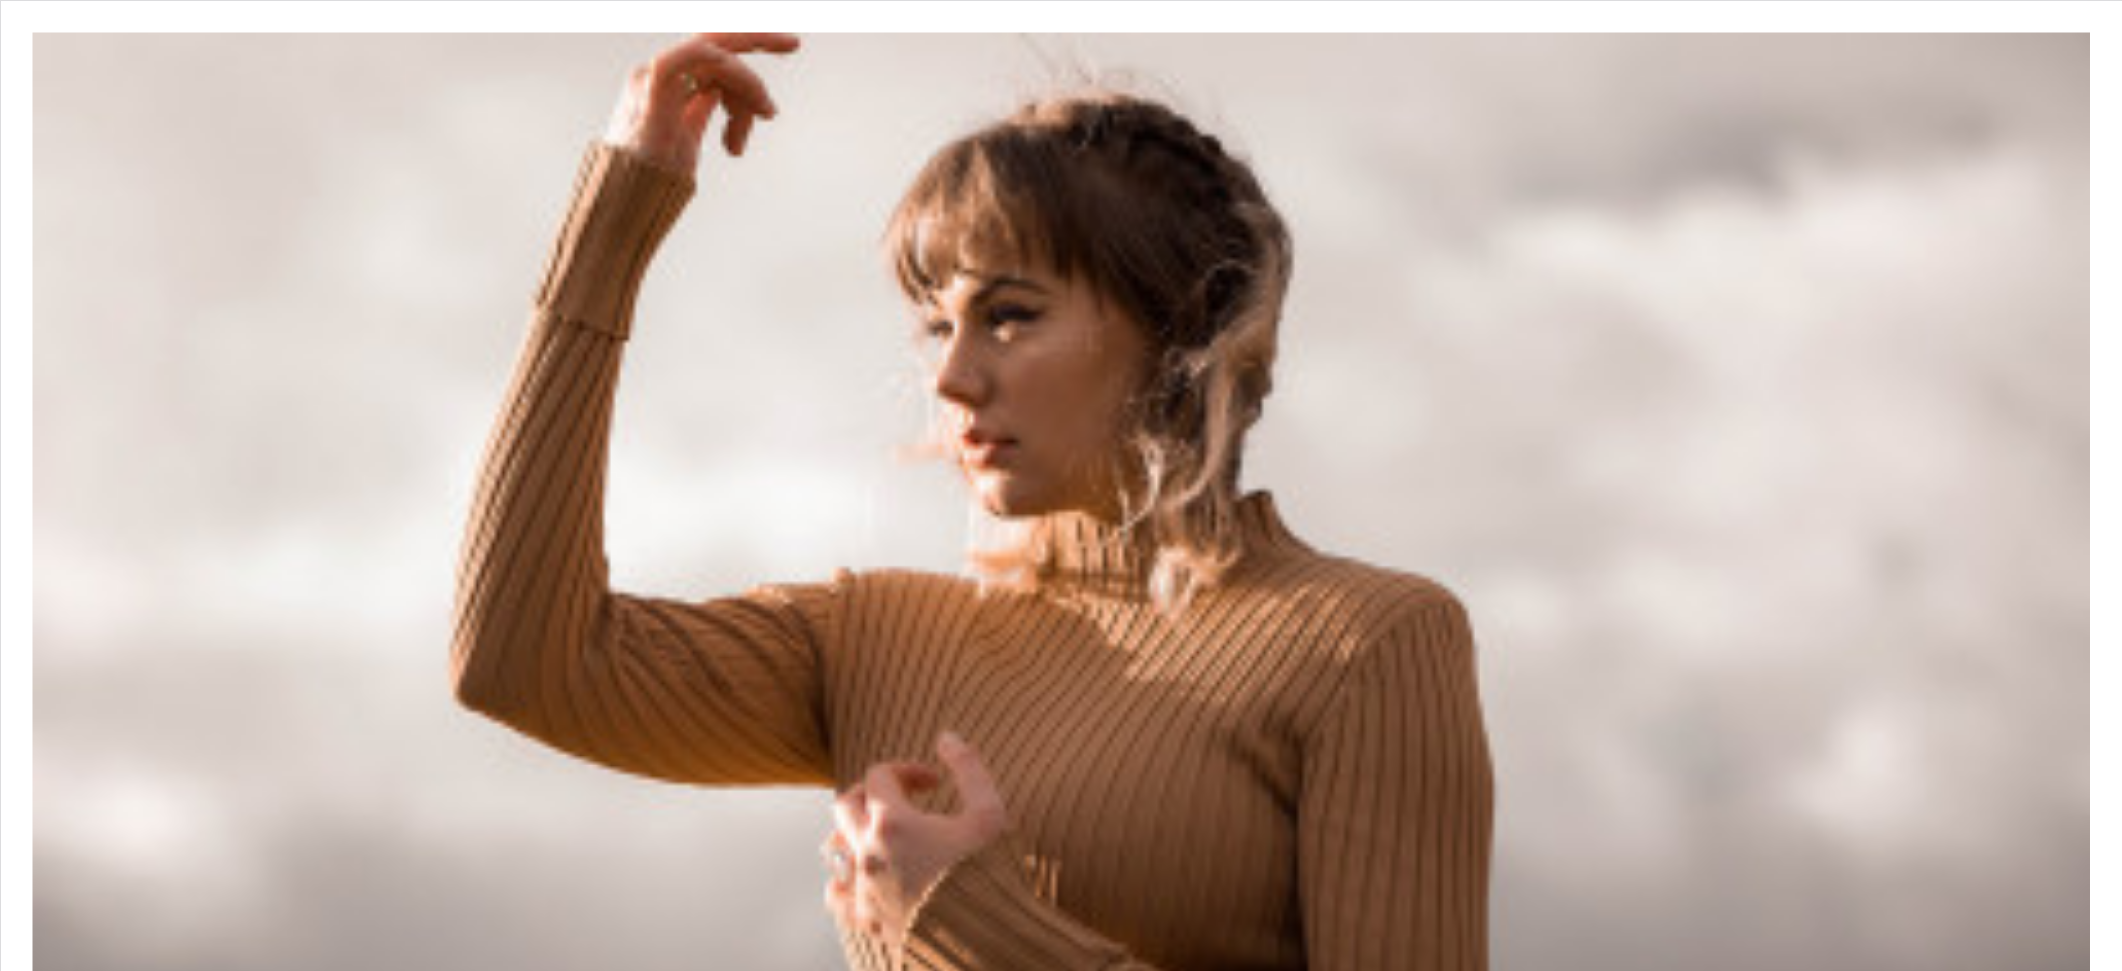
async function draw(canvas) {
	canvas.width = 2122;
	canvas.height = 971;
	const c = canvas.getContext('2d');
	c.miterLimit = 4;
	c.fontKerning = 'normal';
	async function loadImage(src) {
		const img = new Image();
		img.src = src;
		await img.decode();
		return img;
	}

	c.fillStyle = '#fff';
	c.fillRect(0, 0, 2122, 971);
	c.strokeStyle = '#dcdcde';
	c.strokeRect(0.5, 0.5, 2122, 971);
	c.drawImage(await loadImage('img1.png'), 32, 32, 2058, 939);
}

draw(document.querySelector('canvas'));
